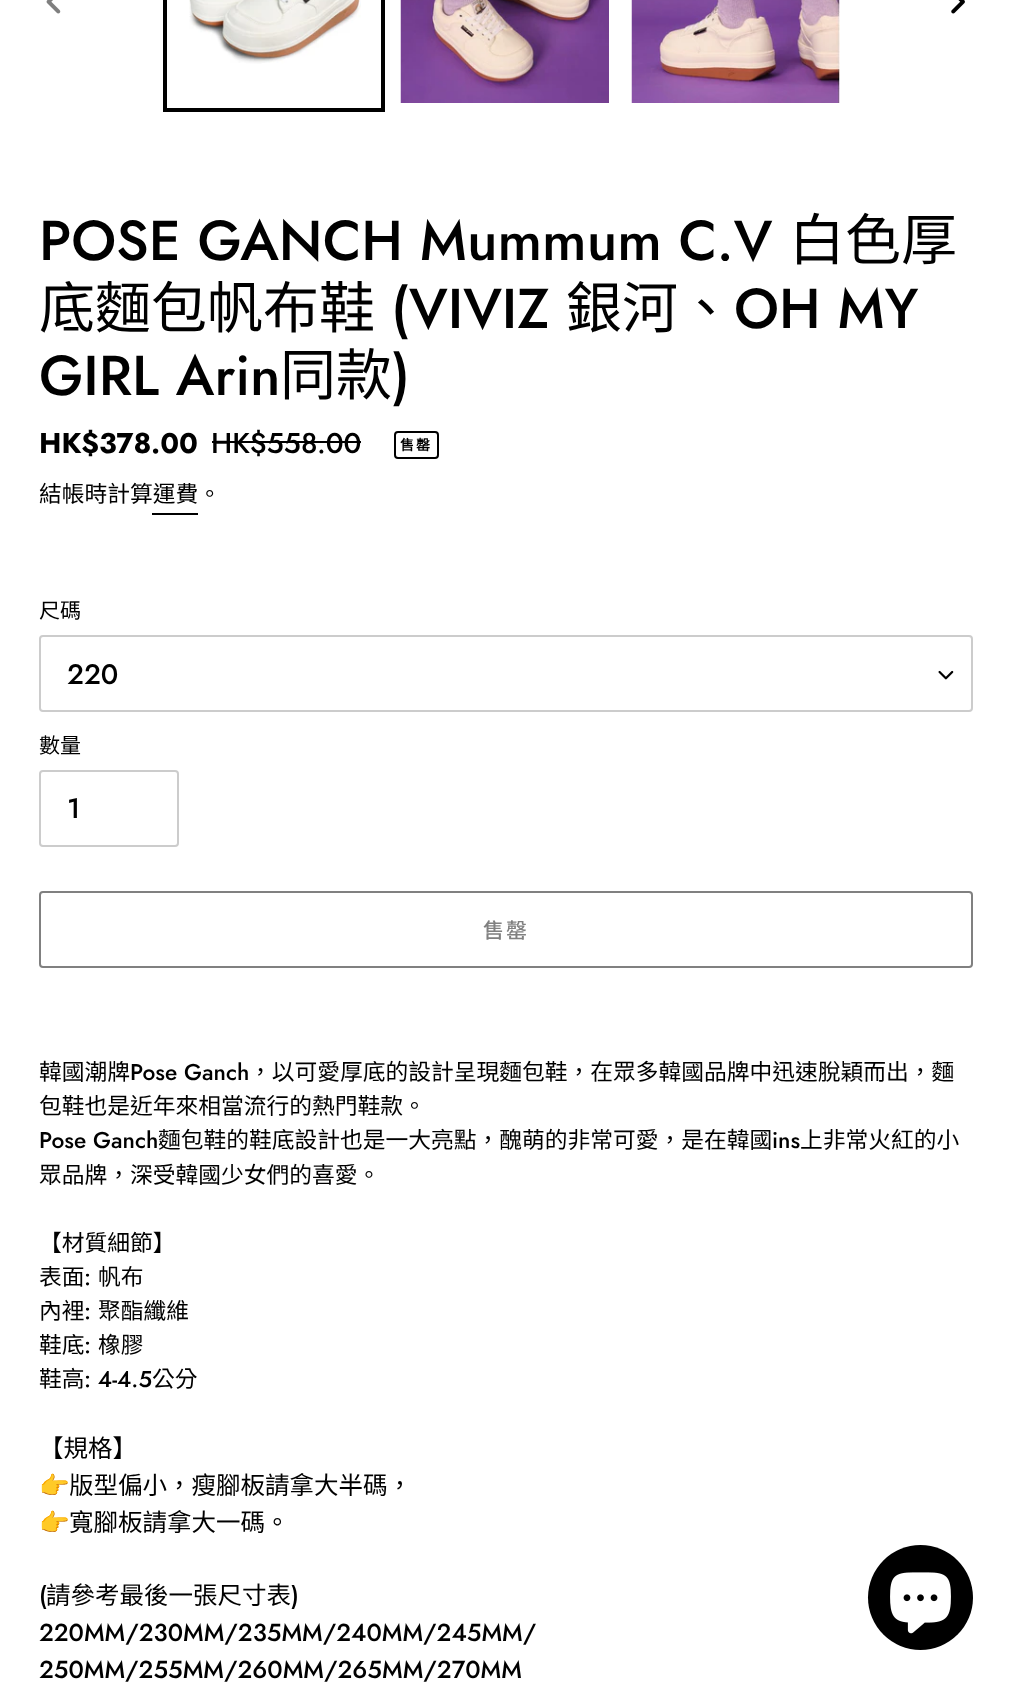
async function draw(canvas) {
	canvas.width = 1010;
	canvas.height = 1687;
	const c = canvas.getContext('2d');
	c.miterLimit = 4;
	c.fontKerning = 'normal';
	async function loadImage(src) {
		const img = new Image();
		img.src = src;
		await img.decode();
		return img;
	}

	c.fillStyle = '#fff';
	c.fillRect(0, 0, 1010, 1687);
	c.drawImage(await loadImage('img1.png'), 46, 0, 15, 14);
	c.strokeStyle = '#000';
	c.lineWidth = 4;
	c.strokeRect(165, -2, 218, 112);
	c.drawImage(await loadImage('img2.png'), 189, 0, 172, 64);
	c.drawImage(await loadImage('img3.png'), 400, 0, 209, 103);
	c.drawImage(await loadImage('img4.png'), 631, 0, 209, 103);
	c.drawImage(await loadImage('img5.png'), 951, 0, 14, 14);
	c.font = '500 56px Jost';
	c.fillStyle = '#000';
	c.fillText('POSE GANCH Mummum C.V', 39, 260);
	c.font = '56px Noto Sans CJK TC';
	c.fillText('白色厚', 789, 260);
	c.fillText('底麵包帆布鞋', 39, 328);
	c.font = '500 56px Jost';
	c.fillText('(VIVIZ', 391, 328);
	c.font = '56px Noto Sans CJK TC';
	c.fillText('銀河、', 566, 328);
	c.font = '500 56px Jost';
	c.fillText('OH MY', 734, 328);
	c.fillText('GIRL Arin', 39, 395);
	c.font = '56px Noto Sans CJK TC';
	c.fillText('同款', 280, 395);
	c.font = '500 56px Jost';
	c.fillText(')', 392, 395);
	c.font = 'bold 28.5px Jost';
	c.fillText('HK$378.00', 39, 453);
	c.font = '500 28.5px Jost';
	c.fillText('HK$558.00', 211, 453);
	c.fillRect(212, 441, 149, 2);
	c.beginPath();
	c.roundRect(395, 432, 43, 26, 3);
	c.lineWidth = 2;
	c.stroke();
	c.letterSpacing = '2px';
	c.font = 'bold 14px Noto Sans CJK TC';
	c.fillText('售罄', 400, 450);
	c.letterSpacing = '0px';
	c.font = '22.75px Noto Sans CJK TC';
	c.fillText('結帳時計算運費。', 39, 502);
	c.fillRect(152, 513, 46, 2);
	c.font = '21px Noto Sans CJK TC';
	c.fillText('尺碼', 39, 618);
	c.drawImage(await loadImage('img6.png'), 938, 670, 16, 10);
	c.beginPath();
	c.roundRect(40, 636, 932, 75, 3);
	c.strokeStyle = '#ccc';
	c.stroke();
	c.font = '500 28px Jost';
	c.fillText('220', 67, 684);
	c.font = '21px Noto Sans CJK TC';
	c.fillText('數量', 39, 753);
	c.beginPath();
	c.roundRect(40, 771, 138, 75, 3);
	c.stroke();
	c.font = '500 28px Jost';
	c.fillText('1', 67, 818);
	c.beginPath();
	c.roundRect(40, 892, 932, 75, 3);
	c.strokeStyle = '#808080';
	c.stroke();
	c.letterSpacing = '2px';
	c.font = '500 21px Noto Sans TC';
	c.fillStyle = '#808080';
	c.fillText('售罄', 483, 938);
	c.letterSpacing = '0px';
	c.font = '22.75px Noto Sans CJK TC';
	c.fillStyle = '#000';
	c.fillText('韓國潮牌', 39, 1080);
	c.font = '500 22.75px Jost';
	c.fillText('Pose Ganch', 130, 1080);
	c.font = '22.75px Noto Sans CJK TC';
	c.fillText('，以可愛厚底的設計呈現麵包鞋，在眾多韓國品牌中迅速脫穎而出，麵', 249, 1080);
	c.fillText('包鞋也是近年來相當流行的熱門鞋款。', 39, 1114);
	c.font = '500 22.75px Jost';
	c.fillText('Pose Ganch', 39, 1148);
	c.font = '22.75px Noto Sans CJK TC';
	c.fillText('麵包鞋的鞋底設計也是一大亮點，醜萌的非常可愛，是在韓國', 158, 1148);
	c.font = '500 22.75px Jost';
	c.fillText('ins', 772, 1148);
	c.font = '22.75px Noto Sans CJK TC';
	for (const [text, x, y] of [
		['上非常火紅的小', 800, 1148],
		['眾品牌，深受韓國少女們的喜愛。', 39, 1183],
		['【材質細節】', 39, 1251],
		['表面', 39, 1285],
	]) {
		c.fillText(text, x, y);
	}
	c.font = '500 22.75px Jost';
	c.fillText(':', 84, 1285);
	c.font = '22.75px Noto Sans CJK TC';
	c.fillText('帆布', 98, 1285);
	c.fillText('內裡', 39, 1319);
	c.font = '500 22.75px Jost';
	c.fillText(':', 84, 1319);
	c.font = '22.75px Noto Sans CJK TC';
	c.fillText('聚酯纖維', 98, 1319);
	c.fillText('鞋底', 39, 1353);
	c.font = '500 22.75px Jost';
	c.fillText(':', 84, 1353);
	c.font = '22.75px Noto Sans CJK TC';
	c.fillText('橡膠', 98, 1353);
	c.fillText('鞋高', 39, 1387);
	c.font = '500 22.75px Jost';
	c.fillText(': 4-4.5', 84, 1387);
	c.font = '22.75px Noto Sans CJK TC';
	c.fillText('公分', 152, 1387);
	c.font = '24.5px Noto Sans CJK TC';
	c.fillText('【規格】', 39, 1457);
	c.font = '24.5px Noto Color Emoji';
	c.fillText('👉', 39, 1494);
	c.font = '24.5px Noto Sans CJK TC';
	c.fillText('版型偏小，瘦腳板請拿大半碼，', 69, 1494);
	c.font = '24.5px Noto Color Emoji';
	c.fillText('👉', 39, 1531);
	c.font = '24.5px Noto Sans CJK TC';
	c.fillText('寬腳板請拿大一碼。', 69, 1531);
	c.font = '500 24.5px Jost';
	c.fillText('(', 39, 1604);
	c.font = '24.5px Noto Sans CJK TC';
	c.fillText('請參考最後一張尺寸表', 46, 1604);
	c.font = '500 24.5px Jost';
	for (const [text, x, y] of [
		[')', 291, 1604],
		['220MM/230MM/235MM/240MM/245MM/', 39, 1641],
		['250MM/255MM/260MM/265MM/270MM', 39, 1678],
	]) {
		c.fillText(text, x, y);
	}
	c.beginPath();
	c.arc(920.5, 1597.5, 52.5, 0, 2 * Math.PI);
	c.fill();
	c.drawImage(await loadImage('img7.png'), 890, 1572, 61, 62);
}

draw(document.querySelector('canvas'));
